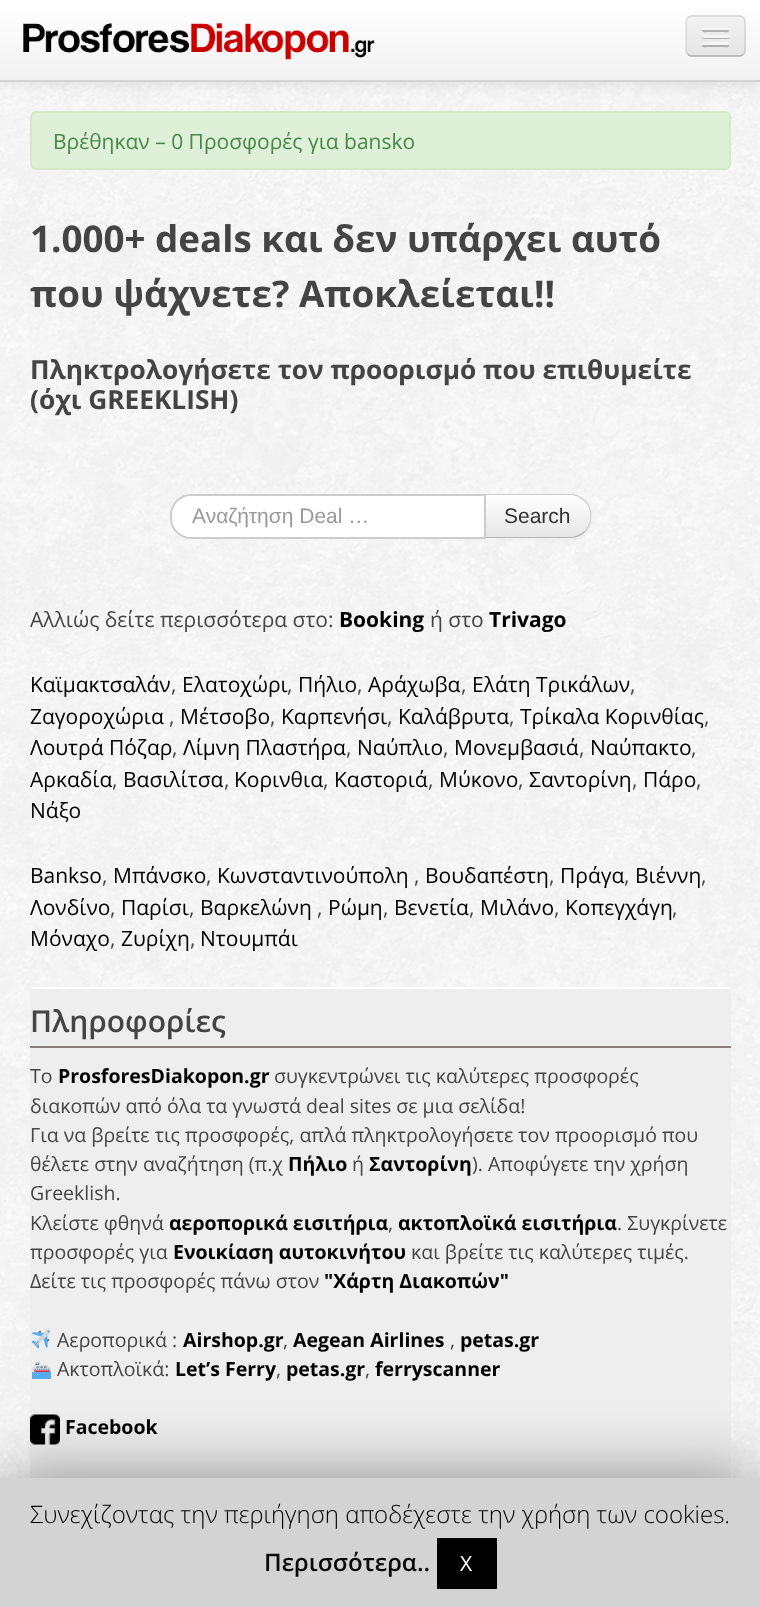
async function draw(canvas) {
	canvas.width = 760;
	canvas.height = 1607;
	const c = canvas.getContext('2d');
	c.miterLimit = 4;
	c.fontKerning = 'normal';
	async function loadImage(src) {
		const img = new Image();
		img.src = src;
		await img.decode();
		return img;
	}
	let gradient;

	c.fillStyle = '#fff';
	c.fillRect(0, 0, 760, 1607);
	c.drawImage(await loadImage('img1.png'), 0, 82, 760, 1396);
	c.fillStyle = '#0000001a';
	c.filter = 'blur(7.5px)';
	c.beginPath();
	c.rect(0, 2, 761, 81);
	c.fill();
	c.filter = 'none';
	gradient = c.createLinearGradient(380, 0, 380, 80);
	gradient.addColorStop(0, '#fff');
	gradient.addColorStop(1, '#f2f2f2');
	c.fillStyle = gradient;
	c.fillRect(0, 0, 760, 80);
	c.fillStyle = '#d4d4d4';
	c.fillRect(0, 80, 760, 2);
	c.drawImage(await loadImage('img2.png'), 23, 23, 352, 37);
	c.fillStyle = '#ededed';
	c.beginPath();
	c.roundRect(686, 15, 60, 42, 6);
	c.fill();
	c.save();
	c.beginPath();
	c.roundRect(686, 15, 60, 42, 6);
	c.clip();
	gradient = c.createLinearGradient(716, 16, 716, 56);
	gradient.addColorStop(0, '#f2f2f2');
	gradient.addColorStop(1, '#e5e5e5');
	c.fillStyle = gradient;
	c.fillRect(686, 17, 60, 39);
	c.restore();
	c.beginPath();
	c.moveTo(743, 54.5);
	c.bezierCurveTo(742, 55.5, 741, 56, 739.5, 56);
	c.lineTo(691.5, 56);
	c.bezierCurveTo(690, 56, 689, 55.5, 688, 54.5);
	c.strokeStyle = '#00000040';
	c.lineWidth = 1.5;
	c.stroke();
	c.beginPath();
	c.moveTo(688, 54.5);
	c.bezierCurveTo(687, 53.5, 686, 52.5, 686, 51);
	c.lineTo(686, 21);
	c.bezierCurveTo(686, 19.5, 687, 18.5, 688, 17.5);
	c.bezierCurveTo(689, 16.5, 690, 16, 691.5, 16);
	c.lineTo(739.5, 16);
	c.bezierCurveTo(741, 16, 742, 16.5, 743, 17.5);
	c.bezierCurveTo(744, 18.5, 745, 19.5, 745, 21);
	c.lineTo(745, 51);
	c.bezierCurveTo(745, 52.5, 744, 53.5, 743, 54.5);
	c.strokeStyle = '#0000001a';
	c.stroke();
	c.fillStyle = '#b2b2b2';
	c.beginPath();
	c.moveTo(702.5, 29.5);
	c.lineTo(702, 31);
	c.bezierCurveTo(702.5, 33, 707, 32, 707.5, 32);
	c.lineTo(723.5, 32);
	c.bezierCurveTo(724, 32, 728.5, 33, 729, 31);
	c.lineTo(728.5, 29.5);
	c.lineTo(727.5, 30);
	c.lineTo(703.5, 30);
	c.closePath();
	c.fill();
	c.fillStyle = '#f5f5f5';
	c.beginPath();
	c.roundRect(702, 27, 27, 3, 1.5);
	c.fill();
	c.fillStyle = '#b0b0b0';
	c.beginPath();
	c.moveTo(702, 36.5);
	c.bezierCurveTo(700.5, 40, 707.5, 39, 707.5, 39);
	c.lineTo(723.5, 39);
	c.bezierCurveTo(723.5, 39, 730.5, 40, 729, 36.5);
	c.bezierCurveTo(728.5, 37, 728, 37.5, 727.5, 37.5);
	c.lineTo(703.5, 37.5);
	c.bezierCurveTo(703, 37.5, 702.5, 37, 702, 36.5);
	c.closePath();
	c.fill();
	c.fillStyle = '#f5f5f5';
	c.beginPath();
	c.roundRect(702, 35, 27, 3, 1.5);
	c.fill();
	c.fillStyle = '#aeaeae';
	c.beginPath();
	c.moveTo(702.5, 44.5);
	c.lineTo(702, 46);
	c.bezierCurveTo(702.5, 48, 707, 47, 707.5, 47);
	c.lineTo(723.5, 47);
	c.bezierCurveTo(724, 47, 728.5, 48, 729, 46);
	c.lineTo(728.5, 44.5);
	c.lineTo(727.5, 45);
	c.lineTo(703.5, 45);
	c.closePath();
	c.fill();
	c.fillStyle = '#f5f5f5';
	c.beginPath();
	c.roundRect(702, 42, 27, 3, 1.5);
	c.fill();
	c.fillStyle = '#dff0d8';
	c.beginPath();
	c.roundRect(31, 112, 699, 57, 5);
	c.fill();
	c.strokeStyle = '#d6e9c6';
	c.lineWidth = 2;
	c.stroke();
	c.font = '21px Open Sans';
	c.fillStyle = '#468847';
	c.fillText('Βρέθηκαν – 0 Προσφορές για bansko', 53, 149);
	c.font = 'bold 36.75px Open Sans';
	c.fillStyle = '#444';
	c.fillText('1.000+ deals και δεν υπάρχει αυτό', 30, 252);
	c.fillText('που ψάχνετε? Αποκλείεται!!', 30, 307);
	c.font = 'bold 26.25px Open Sans';
	c.fillText('Πληκτρολογήσετε τον προορισμό που επιθυμείτε', 30, 379);
	c.fillText('(όχι GREEKLISH)', 30, 409);
	c.fillStyle = '#0000000d';
	c.filter = 'blur(1.5px)';
	c.beginPath();
	c.roundRect(485, 495, 106, 45, 21);
	c.fill();
	c.filter = 'none';
	c.fillStyle = '#f5f5f5';
	c.beginPath();
	c.roundRect(485, 494, 106, 45, [0, 21, 21, 0]);
	c.fill();
	c.save();
	c.beginPath();
	c.roundRect(485, 494, 106, 45, [0, 21, 21, 0]);
	c.clip();
	gradient = c.createLinearGradient(538, 495, 538, 537);
	gradient.addColorStop(0, '#fff');
	gradient.addColorStop(1, '#e6e6e6');
	c.fillStyle = gradient;
	c.fillRect(486, 495, 105, 42);
	c.restore();
	c.fillStyle = '#ccc';
	c.beginPath();
	c.moveTo(486, 495);
	c.lineTo(570, 495);
	c.bezierCurveTo(575, 495, 580, 497, 584, 501);
	c.lineTo(585, 500);
	c.bezierCurveTo(581, 496, 576, 494, 570, 494);
	c.lineTo(485, 494);
	c.closePath();
	c.fill();
	c.beginPath();
	c.moveTo(585, 499.5);
	c.bezierCurveTo(593.5, 507.5, 593.5, 524.5, 585, 532.5);
	c.lineTo(584, 531.5);
	c.bezierCurveTo(592.5, 523.5, 592.5, 508.5, 584, 500.5);
	c.closePath();
	c.fill();
	c.fillStyle = '#b3b3b3';
	c.beginPath();
	c.moveTo(585, 532);
	c.bezierCurveTo(581, 536, 576, 538, 570, 538);
	c.lineTo(485, 538);
	c.lineTo(486, 537);
	c.lineTo(570, 537);
	c.bezierCurveTo(575, 537, 580, 535, 584, 531);
	c.closePath();
	c.fill();
	c.fillStyle = '#fff';
	c.beginPath();
	c.roundRect(171, 495, 314, 43, [20, 0, 0, 20]);
	c.fill();
	c.strokeStyle = '#ccc';
	c.stroke();
	c.font = '21px Liberation Sans';
	c.fillStyle = '#999';
	c.fillText('Αναζήτηση Deal …', 192, 523);
	c.fillStyle = '#333';
	c.fillText('Search', 504, 523);
	c.font = '21px Open Sans';
	c.fillStyle = '#444';
	c.fillText('Αλλιώς δείτε περισσότερα στο:', 30, 627);
	c.font = 'bold 21px Open Sans';
	c.fillStyle = '#000';
	c.fillText('Booking', 339, 627);
	c.font = '21px Open Sans';
	c.fillStyle = '#444';
	c.fillText('ή στο', 430, 627);
	c.font = 'bold 21px Open Sans';
	c.fillStyle = '#000';
	c.fillText('Trivago', 489, 627);
	c.font = '21px Open Sans';
	c.fillText('Καϊμακτσαλάν', 30, 692);
	c.fillStyle = '#444';
	c.fillText(',', 171, 692);
	c.fillStyle = '#000';
	c.fillText('Ελατοχώρι', 182, 692);
	c.fillStyle = '#444';
	c.fillText(',', 287, 692);
	c.fillStyle = '#000';
	c.fillText('Πήλιο', 298, 692);
	c.fillStyle = '#444';
	c.fillText(',', 357, 692);
	c.fillStyle = '#000';
	c.fillText('Αράχωβα', 368, 692);
	c.fillStyle = '#444';
	c.fillText(',', 461, 692);
	c.fillStyle = '#000';
	c.fillText('Ελάτη Τρικάλων', 472, 692);
	c.fillStyle = '#444';
	c.fillText(',', 630, 692);
	c.fillStyle = '#000';
	c.fillText('Ζαγοροχώρια', 30, 724);
	c.fillStyle = '#444';
	c.fillText(',', 169, 724);
	c.fillStyle = '#000';
	c.fillText('Μέτσοβο', 180, 724);
	c.fillStyle = '#444';
	c.fillText(',', 270, 724);
	c.fillStyle = '#000';
	c.fillText('Καρπενήσι', 281, 724);
	c.fillStyle = '#444';
	c.fillText(',', 387, 724);
	c.fillStyle = '#000';
	c.fillText('Καλάβρυτα', 398, 724);
	c.fillStyle = '#444';
	c.fillText(',', 509, 724);
	c.fillStyle = '#000';
	c.fillText('Τρίκαλα Κορινθίας', 520, 724);
	c.fillStyle = '#444';
	c.fillText(',', 704, 724);
	c.fillStyle = '#000';
	c.fillText('Λουτρά Πόζαρ', 30, 755);
	c.fillStyle = '#444';
	c.fillText(',', 172, 755);
	c.fillStyle = '#000';
	c.fillText('Λίμνη Πλαστήρα', 183, 755);
	c.fillStyle = '#444';
	c.fillText(',', 346, 755);
	c.fillStyle = '#000';
	c.fillText('Ναύπλιο', 357, 755);
	c.fillStyle = '#444';
	c.fillText(',', 443, 755);
	c.fillStyle = '#000';
	c.fillText('Μονεμβασιά', 454, 755);
	c.fillStyle = '#444';
	c.fillText(',', 579, 755);
	c.fillStyle = '#000';
	c.fillText('Ναύπακτο', 590, 755);
	c.fillStyle = '#444';
	c.fillText(',', 691, 755);
	c.fillStyle = '#000';
	c.fillText('Αρκαδία', 30, 787);
	c.fillStyle = '#444';
	c.fillText(',', 112, 787);
	c.fillStyle = '#000';
	c.fillText('Βασιλίτσα', 123, 787);
	c.fillStyle = '#444';
	c.fillText(',', 224, 787);
	c.fillStyle = '#000';
	c.fillText('Κορινθια', 234, 787);
	c.fillStyle = '#444';
	c.fillText(',', 323, 787);
	c.fillStyle = '#000';
	c.fillText('Καστοριά', 334, 787);
	c.fillStyle = '#444';
	c.fillText(',', 428, 787);
	c.fillStyle = '#000';
	c.fillText('Μύκονο', 439, 787);
	c.fillStyle = '#444';
	c.fillText(',', 518, 787);
	c.fillStyle = '#000';
	c.fillText('Σαντορίνη', 529, 787);
	c.fillStyle = '#444';
	c.fillText(',', 632, 787);
	c.fillStyle = '#000';
	c.fillText('Πάρο', 643, 787);
	c.fillStyle = '#444';
	c.fillText(',', 696, 787);
	c.fillStyle = '#000';
	c.fillText('Νάξο', 30, 818);
	c.fillText('Bankso', 30, 883);
	c.fillStyle = '#444';
	c.fillText(',', 102, 883);
	c.fillStyle = '#000';
	c.fillText('Μπάνσκο', 113, 883);
	c.fillStyle = '#444';
	c.fillText(',', 206, 883);
	c.fillStyle = '#000';
	c.fillText('Κωνσταντινούπολη', 217, 883);
	c.fillStyle = '#444';
	c.fillText(',', 414, 883);
	c.fillStyle = '#000';
	c.fillText('Βουδαπέστη', 425, 883);
	c.fillStyle = '#444';
	c.fillText(',', 549, 883);
	c.fillStyle = '#000';
	c.fillText('Πράγα', 560, 883);
	c.fillStyle = '#444';
	c.fillText(',', 624, 883);
	c.fillStyle = '#000';
	c.fillText('Βιέννη', 635, 883);
	c.fillStyle = '#444';
	c.fillText(',', 701, 883);
	c.fillStyle = '#000';
	c.fillText('Λονδίνο', 30, 915);
	c.fillStyle = '#444';
	c.fillText(',', 110, 915);
	c.fillStyle = '#000';
	c.fillText('Παρίσι', 121, 915);
	c.fillStyle = '#444';
	c.fillText(',', 189, 915);
	c.fillStyle = '#000';
	c.fillText('Βαρκελώνη', 200, 915);
	c.fillStyle = '#444';
	c.fillText(',', 317, 915);
	c.fillStyle = '#000';
	c.fillText('Ρώμη', 328, 915);
	c.fillStyle = '#444';
	c.fillText(',', 383, 915);
	c.fillStyle = '#000';
	c.fillText('Βενετία', 394, 915);
	c.fillStyle = '#444';
	c.fillText(',', 469, 915);
	c.fillStyle = '#000';
	c.fillText('Μιλάνο', 480, 915);
	c.fillStyle = '#444';
	c.fillText(',', 554, 915);
	c.fillStyle = '#000';
	c.fillText('Κοπεγχάγη', 565, 915);
	c.fillStyle = '#444';
	c.fillText(',', 672, 915);
	c.fillStyle = '#000';
	c.fillText('Μόναχο', 30, 946);
	c.fillStyle = '#444';
	c.fillText(',', 110, 946);
	c.fillStyle = '#000';
	c.fillText('Ζυρίχη', 121, 946);
	c.fillStyle = '#444';
	c.fillText(',', 190, 946);
	c.fillStyle = '#000';
	c.fillText('Ντουμπάι', 200, 946);
	for (const [x, y, w, h, color] of [
		[30, 989, 701, 489, '#eee'],
		[30, 987, 701, 2, '#fff'],
		[30, 1046, 701, 2, '#8c7e7e'],
	]) {
		c.fillStyle = color;
		c.fillRect(x, y, w, h);
	}
	c.font = '600 30px Open Sans';
	c.fillStyle = '#444';
	c.fillText('Πληροφορίες', 30, 1032);
	c.font = '19.5px Open Sans';
	c.fillText('Το', 30, 1083);
	c.font = 'bold 19.5px Open Sans';
	c.fillStyle = '#000';
	c.fillText('ProsforesDiakopon.gr', 58, 1083);
	c.font = '19.5px Open Sans';
	c.fillStyle = '#444';
	for (const [text, x, y] of [
		['συγκεντρώνει τις καλύτερες προσφορές', 274, 1083],
		['διακοπών από όλα τα γνωστά deal sites σε μια σελίδα!', 30, 1113],
		['Για να βρείτε τις προσφορές, απλά πληκτρολογήσετε τον προορισμό που', 30, 1142],
		['θέλετε στην αναζήτηση (π.χ', 30, 1171],
	]) {
		c.fillText(text, x, y);
	}
	c.font = 'bold 19.5px Open Sans';
	c.fillStyle = '#000';
	c.fillText('Πήλιο', 288, 1171);
	c.font = '19.5px Open Sans';
	c.fillStyle = '#444';
	c.fillText('ή', 352, 1171);
	c.font = 'bold 19.5px Open Sans';
	c.fillStyle = '#000';
	c.fillText('Σαντορίνη', 369, 1171);
	c.font = '19.5px Open Sans';
	c.fillStyle = '#444';
	for (const [text, x, y] of [
		['). Αποφύγετε την χρήση', 472, 1171],
		['Greeklish.', 30, 1200],
		['Κλείστε φθηνά', 30, 1230],
	]) {
		c.fillText(text, x, y);
	}
	c.font = 'bold 19.5px Open Sans';
	c.fillStyle = '#000';
	c.fillText('αεροπορικά εισιτήρια', 169, 1230);
	c.font = '19.5px Open Sans';
	c.fillStyle = '#444';
	c.fillText(',', 388, 1230);
	c.font = 'bold 19.5px Open Sans';
	c.fillStyle = '#000';
	c.fillText('ακτοπλοϊκά εισιτήρια', 398, 1230);
	c.font = '19.5px Open Sans';
	c.fillStyle = '#444';
	c.fillText('. Συγκρίνετε', 617, 1230);
	c.fillText('προσφορές για', 30, 1259);
	c.font = 'bold 19.5px Open Sans';
	c.fillStyle = '#000';
	c.fillText('Ενοικίαση αυτοκινήτου', 173, 1259);
	c.font = '19.5px Open Sans';
	c.fillStyle = '#444';
	c.fillText('και βρείτε τις καλύτερες τιμές.', 411, 1259);
	c.fillText('Δείτε τις προσφορές πάνω στον', 30, 1288);
	c.font = 'bold 19.5px Open Sans';
	c.fillStyle = '#000';
	c.fillText('"Χάρτη Διακοπών"', 324, 1288);
	c.drawImage(await loadImage('img3.png'), 32, 1329, 19, 20);
	c.font = '19.5px Open Sans';
	c.fillStyle = '#444';
	c.fillText('Αεροπορικά :', 57, 1347);
	c.font = 'bold 19.5px Open Sans';
	c.fillStyle = '#000';
	c.fillText('Airshop.gr', 183, 1347);
	c.font = '19.5px Open Sans';
	c.fillStyle = '#444';
	c.fillText(',', 283, 1347);
	c.font = 'bold 19.5px Open Sans';
	c.fillStyle = '#000';
	c.fillText('Aegean Airlines', 293, 1347);
	c.font = '19.5px Open Sans';
	c.fillStyle = '#444';
	c.fillText(',', 450, 1347);
	c.font = 'bold 19.5px Open Sans';
	c.fillStyle = '#000';
	c.fillText('petas.gr', 460, 1347);
	c.drawImage(await loadImage('img4.png'), 32, 1360, 19, 19);
	c.font = '19.5px Open Sans';
	c.fillStyle = '#444';
	c.fillText('Ακτοπλοϊκά:', 57, 1376);
	c.font = 'bold 19.5px Open Sans';
	c.fillStyle = '#000';
	c.fillText('Let’s Ferry', 175, 1376);
	c.font = '19.5px Open Sans';
	c.fillStyle = '#444';
	c.fillText(',', 276, 1376);
	c.font = 'bold 19.5px Open Sans';
	c.fillStyle = '#000';
	c.fillText('petas.gr', 286, 1376);
	c.font = '19.5px Open Sans';
	c.fillStyle = '#444';
	c.fillText(',', 365, 1376);
	c.font = 'bold 19.5px Open Sans';
	c.fillStyle = '#000';
	c.fillText('ferryscanner', 375, 1376);
	c.drawImage(await loadImage('img5.png'), 30, 1414, 30, 31);
	c.fillText('Facebook', 65, 1434);
	c.fillStyle = '#00000080';
	c.filter = 'blur(37.5px)';
	c.beginPath();
	c.rect(0, 1485, 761, 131);
	c.fill();
	c.filter = 'none';
	c.fillStyle = '#d3d3d3';
	c.fillRect(0, 1478, 760, 129);
	c.font = '300 24px Open Sans';
	c.fillStyle = '#000';
	c.fillText('Συνεχίζοντας την περιήγηση αποδέχεστε την χρήση των cookies.', 30, 1523);
	c.font = '600 24px Open Sans';
	c.fillStyle = '#0a0a0a';
	c.fillText('Περισσότερα..', 264, 1571);
	c.fillStyle = '#000';
	c.fillRect(437, 1538, 60, 51);
	c.font = '21px Open Sans';
	c.fillStyle = '#fff';
	c.fillText('X', 460, 1571);
}

draw(document.querySelector('canvas'));
